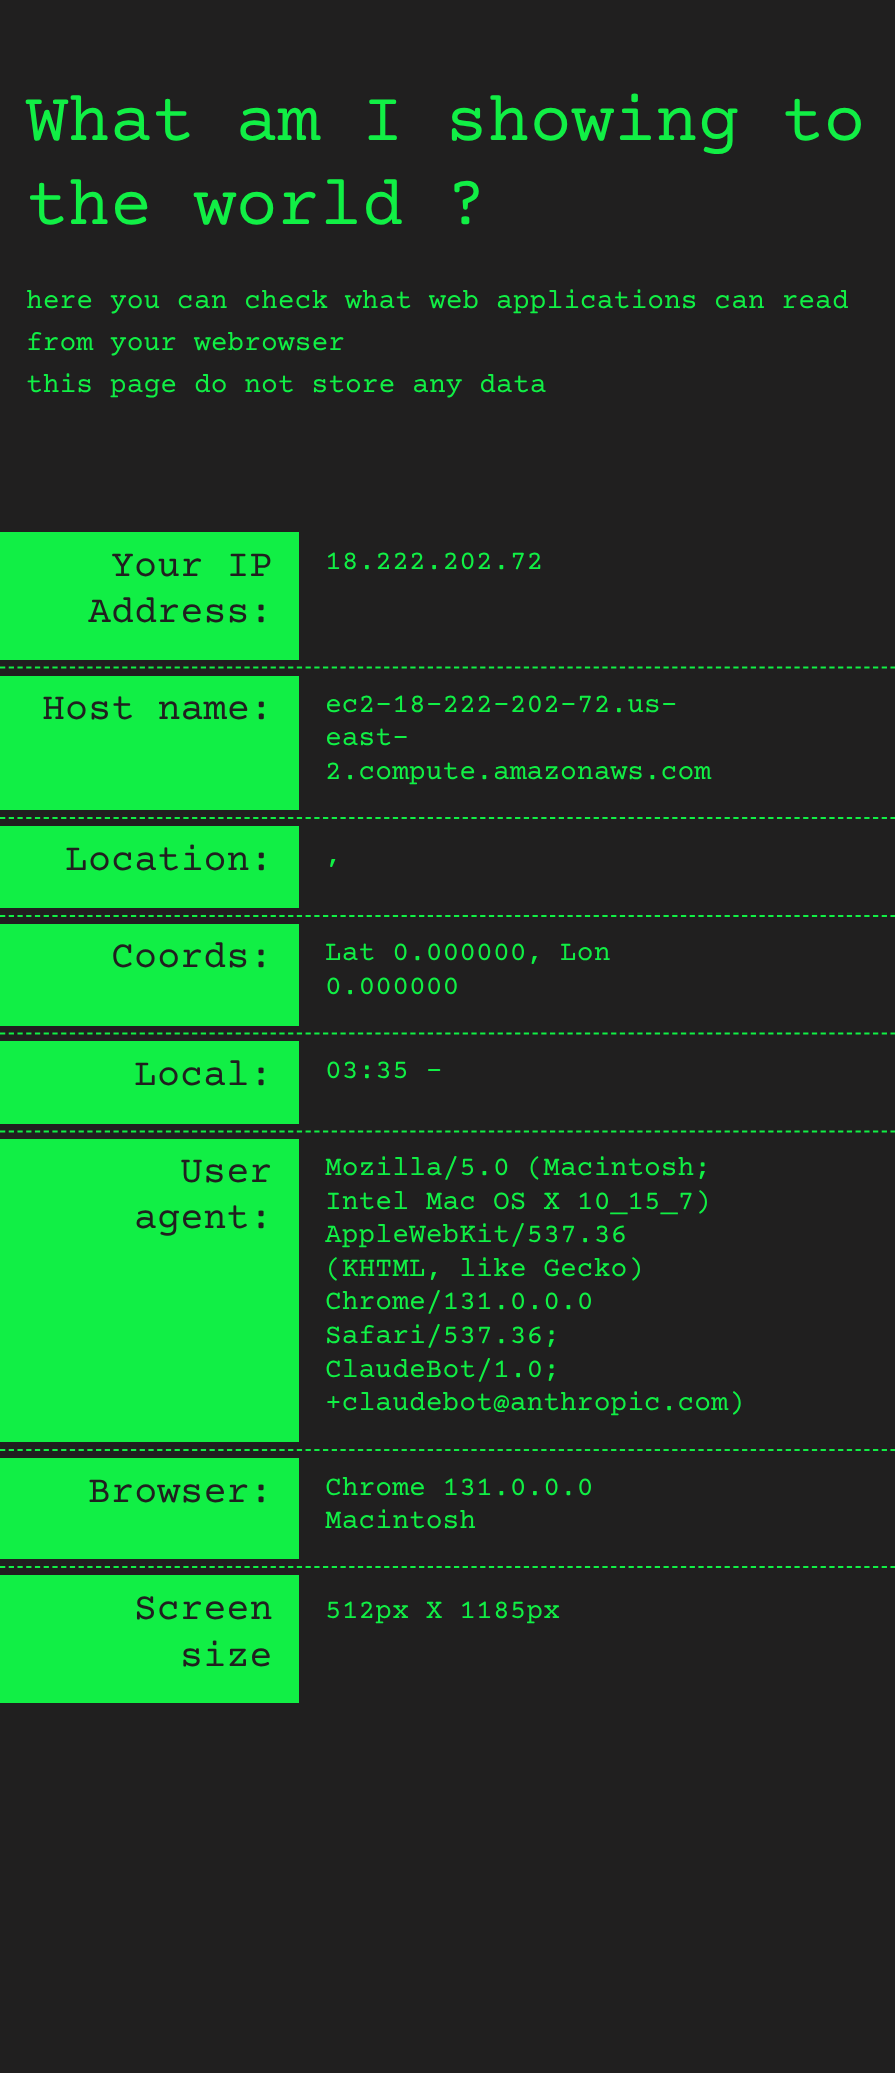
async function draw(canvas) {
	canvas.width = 895;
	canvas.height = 2073;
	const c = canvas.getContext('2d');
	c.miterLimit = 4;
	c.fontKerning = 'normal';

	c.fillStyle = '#201f1f';
	c.fillRect(0, 0, 895, 2073);
	c.font = '70px Courier Prime';
	c.fillStyle = '#11ef45';
	c.fillText('What am I showing to', 26, 140);
	c.fillText('the world ?', 26, 224);
	c.font = '28px Courier Prime';
	for (const [text, x, y] of [
		['here you can check what web applications can read', 26, 308],
		['from your webrowser', 26, 350],
		['this page do not store any data', 26, 392],
	]) {
		c.fillText(text, x, y);
	}
	c.beginPath();
	c.moveTo(0, 667.5);
	c.lineTo(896, 667.5);
	c.strokeStyle = '#11ef45';
	c.lineWidth = 1.8;
	c.setLineDash([5.25, 3.48]);
	c.stroke();
	c.fillRect(0, 532, 299, 128);
	c.font = '38.5px Courier Prime';
	c.fillStyle = '#201f1f';
	c.fillText('Your IP', 111, 576);
	c.fillText('Address:', 88, 622);
	c.font = '28px Courier Prime';
	c.fillStyle = '#11ef45';
	c.fillText('18.222.202.72', 325, 569);
	c.beginPath();
	c.moveTo(0, 818);
	c.lineTo(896, 818);
	c.stroke();
	c.fillRect(0, 676, 299, 134);
	c.font = '38.5px Courier Prime';
	c.fillStyle = '#201f1f';
	c.fillText('Host name:', 42, 719);
	c.font = '28px Courier Prime';
	c.fillStyle = '#11ef45';
	for (const [text, x, y] of [
		['ec2-18-222-202-72.us-', 325, 712],
		['east-', 325, 745],
		['2.compute.amazonaws.com', 325, 779],
	]) {
		c.fillText(text, x, y);
	}
	c.beginPath();
	c.moveTo(0, 916);
	c.lineTo(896, 916);
	c.stroke();
	c.fillRect(0, 826, 299, 82);
	c.font = '38.5px Courier Prime';
	c.fillStyle = '#201f1f';
	c.fillText('Location:', 65, 870);
	c.font = '28px Courier Prime';
	c.fillStyle = '#11ef45';
	c.fillText(',', 325, 863);
	c.beginPath();
	c.moveTo(0, 1033.5);
	c.lineTo(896, 1033.5);
	c.stroke();
	c.fillRect(0, 924, 299, 102);
	c.font = '38.5px Courier Prime';
	c.fillStyle = '#201f1f';
	c.fillText('Coords:', 111, 967);
	c.font = '28px Courier Prime';
	c.fillStyle = '#11ef45';
	c.fillText('Lat 0.000000, Lon', 325, 960);
	c.fillText('0.000000', 325, 994);
	c.beginPath();
	c.moveTo(0, 1131.5);
	c.lineTo(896, 1131.5);
	c.stroke();
	c.fillRect(0, 1041, 299, 83);
	c.font = '38.5px Courier Prime';
	c.fillStyle = '#201f1f';
	c.fillText('Local:', 134, 1085);
	c.font = '28px Courier Prime';
	c.fillStyle = '#11ef45';
	c.fillText('03:35 -', 325, 1078);
	c.beginPath();
	c.moveTo(0, 1450);
	c.lineTo(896, 1450);
	c.stroke();
	c.fillRect(0, 1139, 299, 303);
	c.font = '38.5px Courier Prime';
	c.fillStyle = '#201f1f';
	c.fillText('User', 180, 1182);
	c.fillText('agent:', 134, 1228);
	c.font = '28px Courier Prime';
	c.fillStyle = '#11ef45';
	for (const [text, x, y] of [
		['Mozilla/5.0 (Macintosh;', 325, 1175],
		['Intel Mac OS X 10_15_7)', 325, 1209],
		['AppleWebKit/537.36', 325, 1242],
		['(KHTML, like Gecko)', 325, 1276],
		['Chrome/131.0.0.0', 325, 1309],
		['Safari/537.36;', 325, 1343],
		['ClaudeBot/1.0;', 325, 1377],
		['+claudebot@anthropic.com)', 325, 1410],
	]) {
		c.fillText(text, x, y);
	}
	c.beginPath();
	c.moveTo(0, 1567);
	c.lineTo(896, 1567);
	c.stroke();
	c.fillRect(0, 1458, 299, 101);
	c.font = '38.5px Courier Prime';
	c.fillStyle = '#201f1f';
	c.fillText('Browser:', 88, 1502);
	c.font = '28px Courier Prime';
	c.fillStyle = '#11ef45';
	c.fillText('Chrome 131.0.0.0', 325, 1495);
	c.fillText('Macintosh', 325, 1528);
	c.fillRect(0, 1575, 299, 128);
	c.font = '38.5px Courier Prime';
	c.fillStyle = '#201f1f';
	c.fillText('Screen', 134, 1619);
	c.fillText('size', 180, 1666);
	c.font = '28px Courier Prime';
	c.fillStyle = '#11ef45';
	c.fillText('512px X 1185px', 325, 1618);
}

draw(document.querySelector('canvas'));
